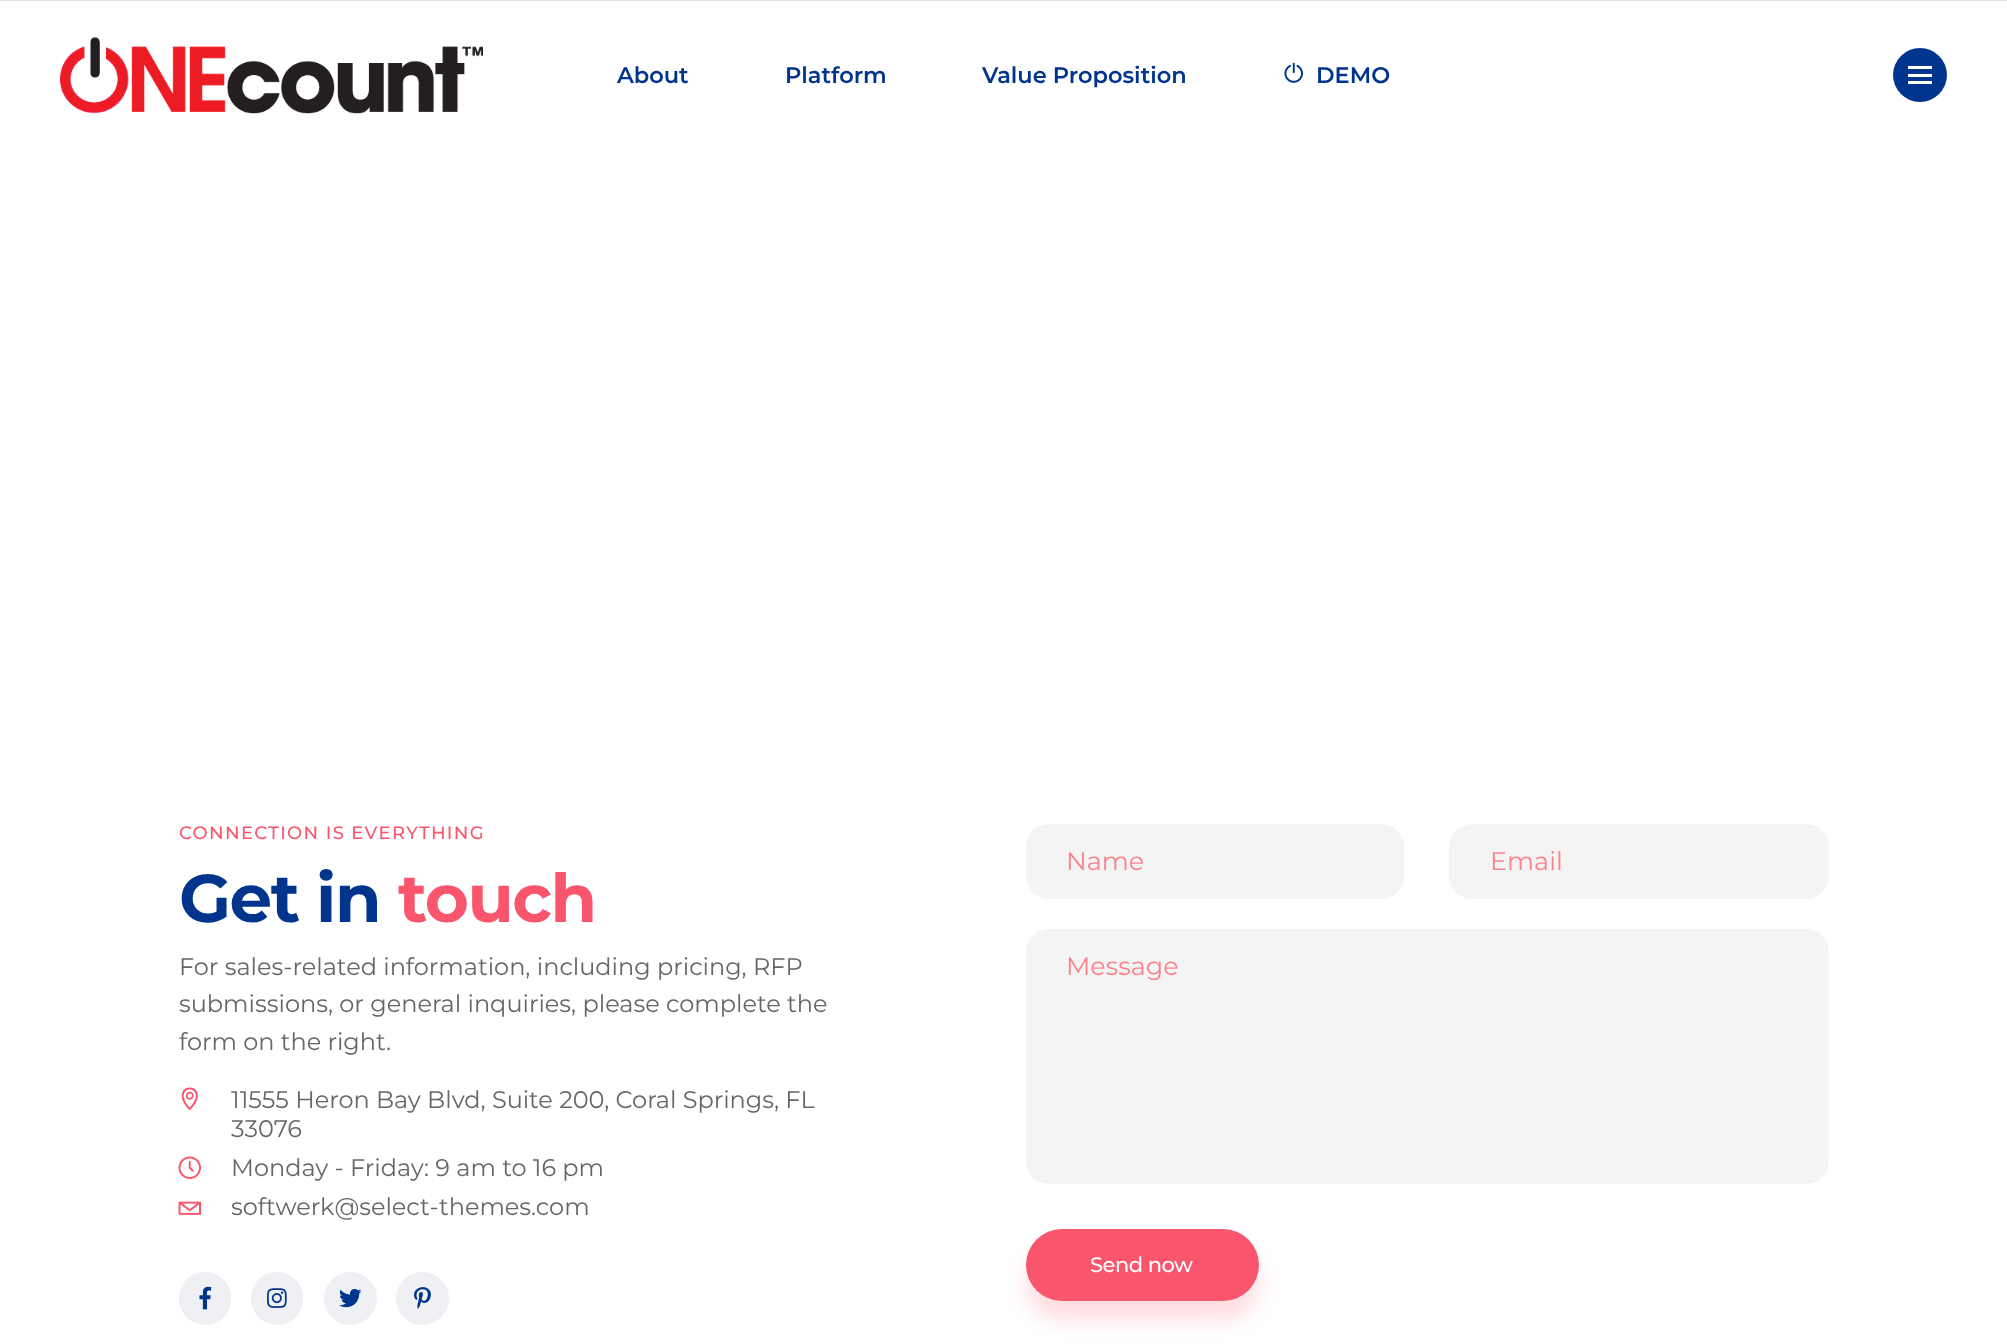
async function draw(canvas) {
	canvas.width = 2007;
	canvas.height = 1344;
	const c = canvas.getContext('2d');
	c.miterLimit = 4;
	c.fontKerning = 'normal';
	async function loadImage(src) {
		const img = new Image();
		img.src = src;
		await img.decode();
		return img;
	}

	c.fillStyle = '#fff';
	c.fillRect(0, 0, 2007, 1344);
	c.fillStyle = '#e1e1e1';
	c.fillRect(0, 0, 2007, 1);
	c.drawImage(await loadImage('img1.png'), 60, 37, 423, 77);
	c.font = '600 22.5px Montserrat';
	c.fillStyle = '#01358d';
	for (const [text, x, y] of [
		['About', 617, 83],
		['Platform', 785, 83],
		['Value Proposition', 982, 83],
	]) {
		c.fillText(text, x, y);
	}
	c.drawImage(await loadImage('img2.png'), 1284, 62, 19, 21);
	c.fillText('DEMO', 1316, 83);
	c.beginPath();
	c.arc(1920, 75, 27, 0, 2 * Math.PI);
	c.fill();
	for (const [x, y, w, h, color] of [
		[1908, 66, 24, 3, '#fff'],
		[1908, 74, 24, 3, '#fff'],
		[1908, 81, 24, 3, '#fff'],
	]) {
		c.fillStyle = color;
		c.fillRect(x, y, w, h);
	}
	c.letterSpacing = '1.35px';
	c.font = '500 18px Montserrat';
	c.fillStyle = '#f9556d';
	c.fillText('CONNECTION IS EVERYTHING', 179, 839);
	c.letterSpacing = '-1.5px';
	c.font = 'bold 67.5px Montserrat';
	c.fillStyle = '#01358d';
	c.fillText('Get in', 179, 922);
	c.fillStyle = '#f9556d';
	c.fillText('touch', 398, 922);
	c.letterSpacing = '0px';
	c.font = '24px Montserrat';
	c.fillStyle = '#666';
	for (const [text, x, y] of [
		['For sales-related information, including pricing, RFP', 179, 975],
		['submissions, or general inquiries, please complete the', 179, 1012],
		['form on the right.', 179, 1050],
	]) {
		c.fillText(text, x, y);
	}
	c.drawImage(await loadImage('img3.png'), 181, 1087, 17, 23);
	c.fillText('11555 Heron Bay Blvd, Suite 200, Coral Springs, FL', 231, 1108);
	c.fillText('33076', 231, 1137);
	c.drawImage(await loadImage('img4.png'), 178, 1156, 23, 23);
	c.fillText('Monday - Friday: 9 am to 16 pm', 231, 1176);
	c.drawImage(await loadImage('img5.png'), 178, 1201, 24, 14);
	c.fillText('softwerk@select-themes.com', 231, 1215);
	c.fillStyle = '#eff0f3';
	c.beginPath();
	c.roundRect(179, 1272, 52, 53, 26);
	c.fill();
	c.drawImage(await loadImage('img6.png'), 199, 1286, 13, 24);
	c.beginPath();
	c.roundRect(251, 1272, 52, 53, 26);
	c.fill();
	c.drawImage(await loadImage('img7.png'), 267, 1288, 20, 20);
	c.beginPath();
	c.arc(350.5, 1298.5, 26.5, 0, 2 * Math.PI);
	c.fill();
	c.drawImage(await loadImage('img8.png'), 339, 1288, 23, 20);
	c.beginPath();
	c.arc(422.5, 1298.5, 26.5, 0, 2 * Math.PI);
	c.fill();
	c.drawImage(await loadImage('img9.png'), 414, 1287, 17, 22);
	c.fillStyle = '#f4f4f4';
	c.beginPath();
	c.roundRect(1026, 824, 378, 75, 23);
	c.fill();
	c.font = '25.5px Montserrat';
	c.fillStyle = '#fb828b';
	c.fillText('Name', 1066, 870);
	c.fillStyle = '#f4f4f4';
	c.beginPath();
	c.roundRect(1449, 824, 380, 75, 23);
	c.fill();
	c.fillStyle = '#fb828b';
	c.fillText('Email', 1490, 870);
	c.fillStyle = '#f4f4f4';
	c.beginPath();
	c.roundRect(1026, 929, 803, 255, 23);
	c.fill();
	c.fillStyle = '#fb828b';
	c.fillText('Message', 1066, 975);
	c.fillStyle = '#f9556d33';
	c.filter = 'blur(10px)';
	c.beginPath();
	c.roundRect(1026, 1248, 233, 72, 36);
	c.fill();
	c.filter = 'none';
	c.fillStyle = '#f9556d';
	c.beginPath();
	c.roundRect(1026, 1229, 233, 72, 36);
	c.fill();
	c.letterSpacing = '-0.5px';
	c.font = '500 21px Montserrat';
	c.fillStyle = '#fff';
	c.fillText('Send now', 1090, 1272);
}

draw(document.querySelector('canvas'));
